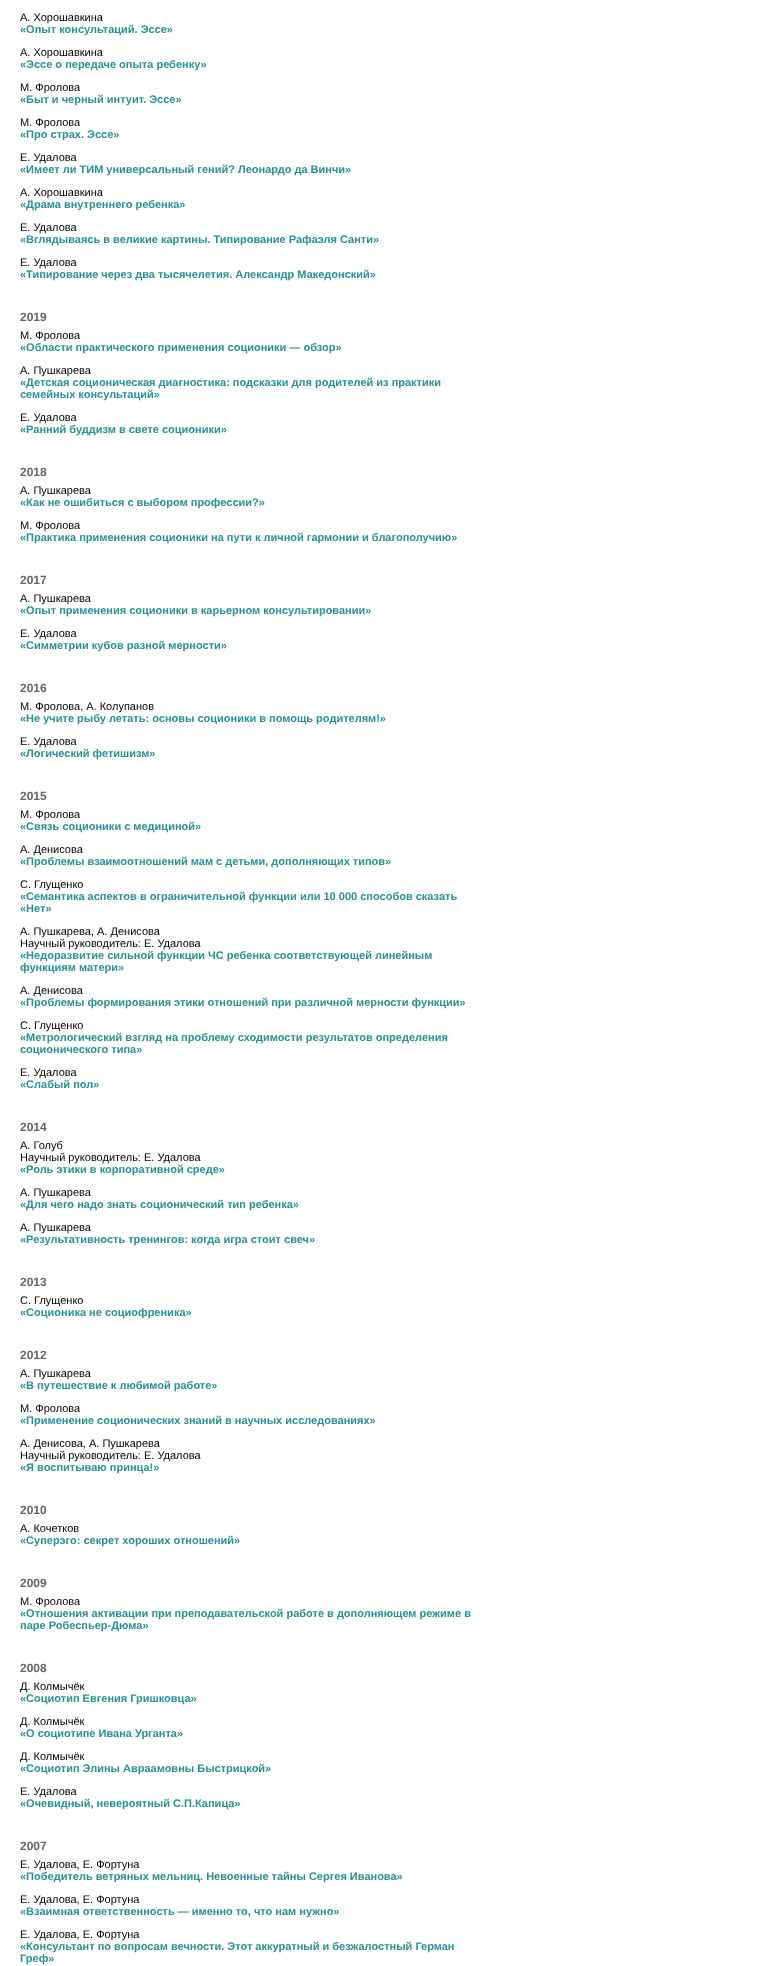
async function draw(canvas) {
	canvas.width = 768;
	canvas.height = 1966;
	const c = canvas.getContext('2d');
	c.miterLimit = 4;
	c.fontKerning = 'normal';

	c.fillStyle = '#fff';
	c.fillRect(0, 0, 768, 1966);
	c.font = '11px Liberation Sans';
	c.fillStyle = '#000';
	c.fillText('А. Хорошавкина', 20, 21);
	c.font = 'bold 11px Liberation Sans';
	c.fillStyle = '#279195';
	c.fillText('«Опыт консультаций. Эссе»', 20, 33);
	c.font = '11px Liberation Sans';
	c.fillStyle = '#000';
	c.fillText('А. Хорошавкина', 20, 56);
	c.font = 'bold 11px Liberation Sans';
	c.fillStyle = '#279195';
	c.fillText('«Эссе о передаче опыта ребенку»', 20, 68);
	c.font = '11px Liberation Sans';
	c.fillStyle = '#000';
	c.fillText('М. Фролова', 20, 91);
	c.font = 'bold 11px Liberation Sans';
	c.fillStyle = '#279195';
	c.fillText('«Быт и черный интуит. Эссе»', 20, 103);
	c.font = '11px Liberation Sans';
	c.fillStyle = '#000';
	c.fillText('М. Фролова', 20, 126);
	c.font = 'bold 11px Liberation Sans';
	c.fillStyle = '#279195';
	c.fillText('«Про страх. Эссе»', 20, 138);
	c.font = '11px Liberation Sans';
	c.fillStyle = '#000';
	c.fillText('Е. Удалова', 20, 161);
	c.font = 'bold 11px Liberation Sans';
	c.fillStyle = '#279195';
	c.fillText('«Имеет ли ТИМ универсальный гений? Леонардо да Винчи»', 20, 173);
	c.font = '11px Liberation Sans';
	c.fillStyle = '#000';
	c.fillText('А. Хорошавкина', 20, 196);
	c.font = 'bold 11px Liberation Sans';
	c.fillStyle = '#279195';
	c.fillText('«Драма внутреннего ребенка»', 20, 208);
	c.font = '11px Liberation Sans';
	c.fillStyle = '#000';
	c.fillText('Е. Удалова', 20, 231);
	c.font = 'bold 11px Liberation Sans';
	c.fillStyle = '#279195';
	c.fillText('«Вглядываясь в великие картины. Типирование Рафаэля Санти»', 20, 243);
	c.font = '11px Liberation Sans';
	c.fillStyle = '#000';
	c.fillText('Е. Удалова', 20, 266);
	c.font = 'bold 11px Liberation Sans';
	c.fillStyle = '#279195';
	c.fillText('«Типирование через два тысячелетия. Александр Македонский»', 20, 278);
	c.font = 'bold 12px Liberation Sans';
	c.fillStyle = '#666';
	c.fillText('2019', 20, 321);
	c.font = '11px Liberation Sans';
	c.fillStyle = '#000';
	c.fillText('М. Фролова', 20, 339);
	c.font = 'bold 11px Liberation Sans';
	c.fillStyle = '#279195';
	c.fillText('«Области практического применения соционики — обзор»', 20, 351);
	c.font = '11px Liberation Sans';
	c.fillStyle = '#000';
	c.fillText('А. Пушкарева', 20, 374);
	c.font = 'bold 11px Liberation Sans';
	c.fillStyle = '#279195';
	c.fillText('«Детская соционическая диагностика: подсказки для родителей из практики', 20, 386);
	c.fillText('семейных консультаций»', 20, 398);
	c.font = '11px Liberation Sans';
	c.fillStyle = '#000';
	c.fillText('Е. Удалова', 20, 421);
	c.font = 'bold 11px Liberation Sans';
	c.fillStyle = '#279195';
	c.fillText('«Ранний буддизм в свете соционики»', 20, 433);
	c.font = 'bold 12px Liberation Sans';
	c.fillStyle = '#666';
	c.fillText('2018', 20, 476);
	c.font = '11px Liberation Sans';
	c.fillStyle = '#000';
	c.fillText('А. Пушкарева', 20, 494);
	c.font = 'bold 11px Liberation Sans';
	c.fillStyle = '#279195';
	c.fillText('«Как не ошибиться с выбором профессии?»', 20, 506);
	c.font = '11px Liberation Sans';
	c.fillStyle = '#000';
	c.fillText('М. Фролова', 20, 529);
	c.font = 'bold 11px Liberation Sans';
	c.fillStyle = '#279195';
	c.fillText('«Практика применения соционики на пути к личной гармонии и благополучию»', 20, 541);
	c.font = 'bold 12px Liberation Sans';
	c.fillStyle = '#666';
	c.fillText('2017', 20, 584);
	c.font = '11px Liberation Sans';
	c.fillStyle = '#000';
	c.fillText('А. Пушкарева', 20, 602);
	c.font = 'bold 11px Liberation Sans';
	c.fillStyle = '#279195';
	c.fillText('«Опыт применения соционики в карьерном консультировании»', 20, 614);
	c.font = '11px Liberation Sans';
	c.fillStyle = '#000';
	c.fillText('Е. Удалова', 20, 637);
	c.font = 'bold 11px Liberation Sans';
	c.fillStyle = '#279195';
	c.fillText('«Симметрии кубов разной мерности»', 20, 649);
	c.font = 'bold 12px Liberation Sans';
	c.fillStyle = '#666';
	c.fillText('2016', 20, 692);
	c.font = '11px Liberation Sans';
	c.fillStyle = '#000';
	c.fillText('М. Фролова, А. Колупанов', 20, 710);
	c.font = 'bold 11px Liberation Sans';
	c.fillStyle = '#279195';
	c.fillText('«Не учите рыбу летать: основы соционики в помощь родителям!»', 20, 722);
	c.font = '11px Liberation Sans';
	c.fillStyle = '#000';
	c.fillText('Е. Удалова', 20, 745);
	c.font = 'bold 11px Liberation Sans';
	c.fillStyle = '#279195';
	c.fillText('«Логический фетишизм»', 20, 757);
	c.font = 'bold 12px Liberation Sans';
	c.fillStyle = '#666';
	c.fillText('2015', 20, 800);
	c.font = '11px Liberation Sans';
	c.fillStyle = '#000';
	c.fillText('М. Фролова', 20, 818);
	c.font = 'bold 11px Liberation Sans';
	c.fillStyle = '#279195';
	c.fillText('«Связь соционики с медициной»', 20, 830);
	c.font = '11px Liberation Sans';
	c.fillStyle = '#000';
	c.fillText('А. Денисова', 20, 853);
	c.font = 'bold 11px Liberation Sans';
	c.fillStyle = '#279195';
	c.fillText('«Проблемы взаимоотношений мам с детьми, дополняющих типов»', 20, 865);
	c.font = '11px Liberation Sans';
	c.fillStyle = '#000';
	c.fillText('С. Глущенко', 20, 888);
	c.font = 'bold 11px Liberation Sans';
	c.fillStyle = '#279195';
	c.fillText('«Семантика аспектов в ограничительной функции или 10 000 способов сказать', 20, 900);
	c.fillText('«Нет»', 20, 912);
	c.font = '11px Liberation Sans';
	c.fillStyle = '#000';
	c.fillText('А. Пушкарева, А. Денисова', 20, 935);
	c.fillText('Научный руководитель: Е. Удалова', 20, 947);
	c.font = 'bold 11px Liberation Sans';
	c.fillStyle = '#279195';
	c.fillText('«Недоразвитие сильной функции ЧС ребенка соответствующей линейным', 20, 959);
	c.fillText('функциям матери»', 20, 971);
	c.font = '11px Liberation Sans';
	c.fillStyle = '#000';
	c.fillText('А. Денисова', 20, 994);
	c.font = 'bold 11px Liberation Sans';
	c.fillStyle = '#279195';
	c.fillText('«Проблемы формирования этики отношений при различной мерности функции»', 20, 1006);
	c.font = '11px Liberation Sans';
	c.fillStyle = '#000';
	c.fillText('С. Глущенко', 20, 1029);
	c.font = 'bold 11px Liberation Sans';
	c.fillStyle = '#279195';
	c.fillText('«Метрологический взгляд на проблему сходимости результатов определения', 20, 1041);
	c.fillText('соционического типа»', 20, 1053);
	c.font = '11px Liberation Sans';
	c.fillStyle = '#000';
	c.fillText('Е. Удалова', 20, 1076);
	c.font = 'bold 11px Liberation Sans';
	c.fillStyle = '#279195';
	c.fillText('«Слабый пол»', 20, 1088);
	c.font = 'bold 12px Liberation Sans';
	c.fillStyle = '#666';
	c.fillText('2014', 20, 1131);
	c.font = '11px Liberation Sans';
	c.fillStyle = '#000';
	c.fillText('А. Голуб', 20, 1149);
	c.fillText('Научный руководитель: Е. Удалова', 20, 1161);
	c.font = 'bold 11px Liberation Sans';
	c.fillStyle = '#279195';
	c.fillText('«Роль этики в корпоративной среде»', 20, 1173);
	c.font = '11px Liberation Sans';
	c.fillStyle = '#000';
	c.fillText('А. Пушкарева', 20, 1196);
	c.font = 'bold 11px Liberation Sans';
	c.fillStyle = '#279195';
	c.fillText('«Для чего надо знать соционический тип ребенка»', 20, 1208);
	c.font = '11px Liberation Sans';
	c.fillStyle = '#000';
	c.fillText('А. Пушкарева', 20, 1231);
	c.font = 'bold 11px Liberation Sans';
	c.fillStyle = '#279195';
	c.fillText('«Результативность тренингов: когда игра стоит свеч»', 20, 1243);
	c.font = 'bold 12px Liberation Sans';
	c.fillStyle = '#666';
	c.fillText('2013', 20, 1286);
	c.font = '11px Liberation Sans';
	c.fillStyle = '#000';
	c.fillText('С. Глущенко', 20, 1304);
	c.font = 'bold 11px Liberation Sans';
	c.fillStyle = '#279195';
	c.fillText('«Соционика не социофреника»', 20, 1316);
	c.font = 'bold 12px Liberation Sans';
	c.fillStyle = '#666';
	c.fillText('2012', 20, 1359);
	c.font = '11px Liberation Sans';
	c.fillStyle = '#000';
	c.fillText('А. Пушкарева', 20, 1377);
	c.font = 'bold 11px Liberation Sans';
	c.fillStyle = '#279195';
	c.fillText('«В путешествие к любимой работе»', 20, 1389);
	c.font = '11px Liberation Sans';
	c.fillStyle = '#000';
	c.fillText('М. Фролова', 20, 1412);
	c.font = 'bold 11px Liberation Sans';
	c.fillStyle = '#279195';
	c.fillText('«Применение соционических знаний в научных исследованиях»', 20, 1424);
	c.font = '11px Liberation Sans';
	c.fillStyle = '#000';
	c.fillText('А. Денисова, А. Пушкарева', 20, 1447);
	c.fillText('Научный руководитель: Е. Удалова', 20, 1459);
	c.font = 'bold 11px Liberation Sans';
	c.fillStyle = '#279195';
	c.fillText('«Я воспитываю принца!»', 20, 1471);
	c.font = 'bold 12px Liberation Sans';
	c.fillStyle = '#666';
	c.fillText('2010', 20, 1514);
	c.font = '11px Liberation Sans';
	c.fillStyle = '#000';
	c.fillText('А. Кочетков', 20, 1532);
	c.font = 'bold 11px Liberation Sans';
	c.fillStyle = '#279195';
	c.fillText('«Суперэго: секрет хороших отношений»', 20, 1544);
	c.font = 'bold 12px Liberation Sans';
	c.fillStyle = '#666';
	c.fillText('2009', 20, 1587);
	c.font = '11px Liberation Sans';
	c.fillStyle = '#000';
	c.fillText('М. Фролова', 20, 1605);
	c.font = 'bold 11px Liberation Sans';
	c.fillStyle = '#279195';
	c.fillText('«Отношения активации при преподавательской работе в дополняющем режиме в', 20, 1617);
	c.fillText('паре Робеспьер-Дюма»', 20, 1629);
	c.font = 'bold 12px Liberation Sans';
	c.fillStyle = '#666';
	c.fillText('2008', 20, 1672);
	c.font = '11px Liberation Sans';
	c.fillStyle = '#000';
	c.fillText('Д. Колмычёк', 20, 1690);
	c.font = 'bold 11px Liberation Sans';
	c.fillStyle = '#279195';
	c.fillText('«Социотип Евгения Гришковца»', 20, 1702);
	c.font = '11px Liberation Sans';
	c.fillStyle = '#000';
	c.fillText('Д. Колмычёк', 20, 1725);
	c.font = 'bold 11px Liberation Sans';
	c.fillStyle = '#279195';
	c.fillText('«О социотипе Ивана Урганта»', 20, 1737);
	c.font = '11px Liberation Sans';
	c.fillStyle = '#000';
	c.fillText('Д. Колмычёк', 20, 1760);
	c.font = 'bold 11px Liberation Sans';
	c.fillStyle = '#279195';
	c.fillText('«Социотип Элины Авраамовны Быстрицкой»', 20, 1772);
	c.font = '11px Liberation Sans';
	c.fillStyle = '#000';
	c.fillText('Е. Удалова', 20, 1795);
	c.font = 'bold 11px Liberation Sans';
	c.fillStyle = '#279195';
	c.fillText('«Очевидный, невероятный С.П.Капица»', 20, 1807);
	c.font = 'bold 12px Liberation Sans';
	c.fillStyle = '#666';
	c.fillText('2007', 20, 1850);
	c.font = '11px Liberation Sans';
	c.fillStyle = '#000';
	c.fillText('Е. Удалова, Е. Фортуна', 20, 1868);
	c.font = 'bold 11px Liberation Sans';
	c.fillStyle = '#279195';
	c.fillText('«Победитель ветряных мельниц. Невоенные тайны Сергея Иванова»', 20, 1880);
	c.font = '11px Liberation Sans';
	c.fillStyle = '#000';
	c.fillText('Е. Удалова, Е. Фортуна', 20, 1903);
	c.font = 'bold 11px Liberation Sans';
	c.fillStyle = '#279195';
	c.fillText('«Взаимная ответственность — именно то, что нам нужно»', 20, 1915);
	c.font = '11px Liberation Sans';
	c.fillStyle = '#000';
	c.fillText('Е. Удалова, Е. Фортуна', 20, 1938);
	c.font = 'bold 11px Liberation Sans';
	c.fillStyle = '#279195';
	c.fillText('«Консультант по вопросам вечности. Этот аккуратный и безжалостный Герман', 20, 1950);
	c.fillText('Греф»', 20, 1962);
}

draw(document.querySelector('canvas'));
